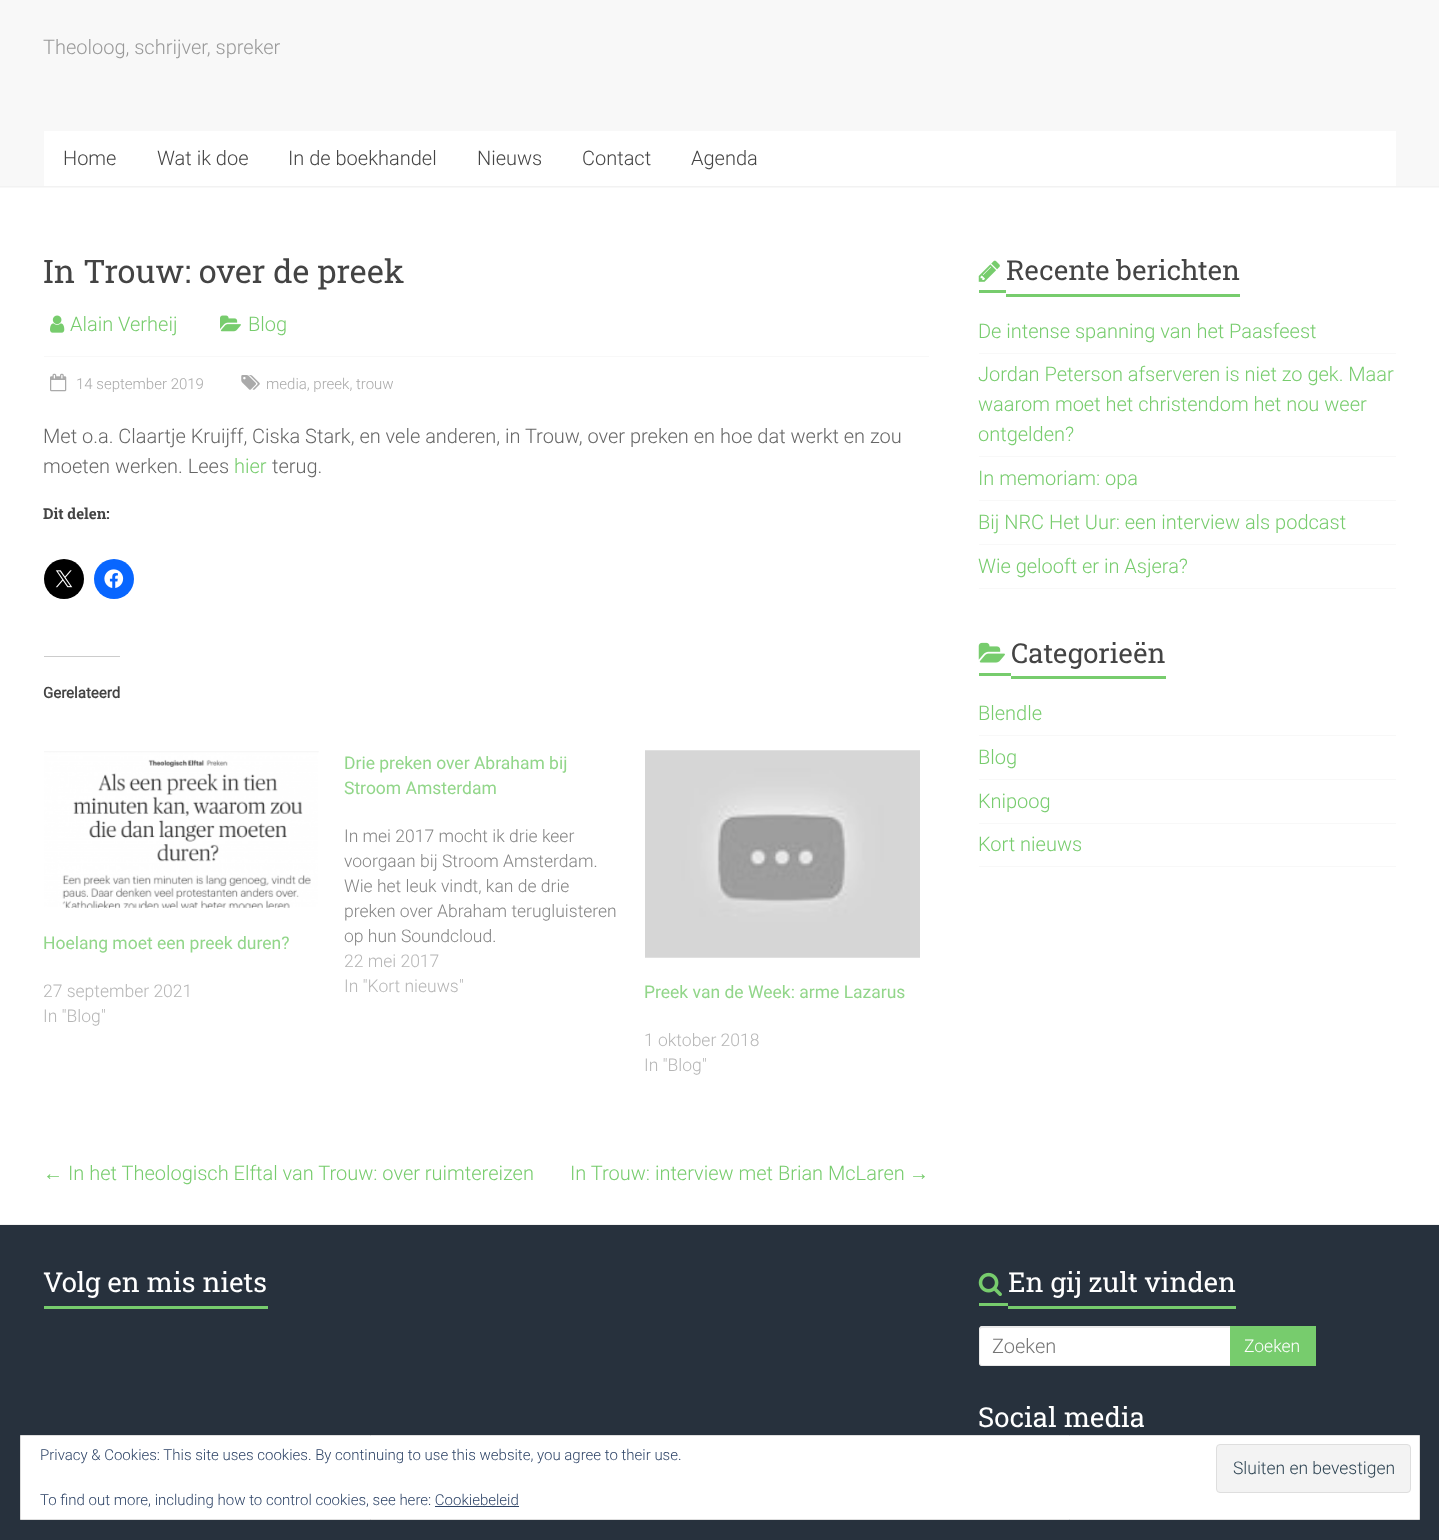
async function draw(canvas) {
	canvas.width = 1439;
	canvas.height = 1540;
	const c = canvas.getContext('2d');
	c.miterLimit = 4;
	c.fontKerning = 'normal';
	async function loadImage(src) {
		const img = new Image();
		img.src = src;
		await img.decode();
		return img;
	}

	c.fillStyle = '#fff';
	c.fillRect(0, 0, 1439, 1540);
	c.fillStyle = '#f8f8f8';
	c.fillRect(0, 0, 1439, 188);
	c.fillStyle = '#f2f2f2';
	c.fillRect(0, 186, 1439, 1);
	c.font = '300 20px Roboto';
	c.fillStyle = '#999';
	c.fillText('Theoloog, schrijver, spreker', 43, 54);
	c.fillStyle = '#fff';
	c.fillRect(44, 131, 1352, 55);
	c.fillStyle = '#444';
	for (const [text, x, y] of [
		['Home', 63, 165],
		['Wat ik doe', 157, 165],
		['In de boekhandel', 288, 165],
		['Nieuws', 477, 165],
		['Contact', 582, 165],
		['Agenda', 691, 165],
	]) {
		c.fillText(text, x, y);
	}
	c.font = '32.5px Roboto Slab';
	c.fillText('In Trouw: over de preek', 43, 283);
	c.drawImage(await loadImage('img1.png'), 50, 315, 15, 18);
	c.font = '300 20px Roboto';
	c.fillStyle = '#77cc6d';
	c.fillText('Alain Verheij', 70, 331);
	c.drawImage(await loadImage('img2.png'), 220, 315, 21, 17);
	c.fillText('Blog', 248, 331);
	c.fillStyle = '#f8f8f8';
	c.fillRect(44, 356, 885, 1);
	c.drawImage(await loadImage('img3.png'), 50, 373, 17, 19);
	c.font = '300 15px Roboto';
	c.fillStyle = '#aaa';
	c.fillText('14 september 2019', 76, 389);
	c.drawImage(await loadImage('img4.png'), 241, 375, 19, 15);
	c.fillText('media, preek, trouw', 266, 389);
	c.font = '300 20px Roboto';
	c.fillStyle = '#666';
	c.fillText('Met o.a. Claartje Kruijff, Ciska Stark, en vele anderen, in Trouw, over preken en hoe dat werkt en zou', 43, 443);
	c.fillText('moeten werken. Lees', 43, 473);
	c.fillStyle = '#77cc6d';
	c.fillText('hier', 234, 473);
	c.fillStyle = '#666';
	c.fillText('terug.', 272, 473);
	c.font = 'bold 15px Roboto Slab';
	c.fillStyle = '#444';
	c.fillText('Dit delen:', 43, 519);
	c.fillStyle = '#000';
	c.beginPath();
	c.arc(64, 579, 20, 0, 2 * Math.PI);
	c.fill();
	c.drawImage(await loadImage('img5.png'), 55, 570, 18, 18);
	c.fillStyle = '#0866ff';
	c.beginPath();
	c.arc(114, 579, 20, 0, 2 * Math.PI);
	c.fill();
	c.drawImage(await loadImage('img6.png'), 104, 569, 20, 19);
	c.fillStyle = '#ccc';
	c.fillRect(44, 656, 76, 1);
	c.font = 'bold 15px Roboto';
	c.fillStyle = '#444';
	c.fillText('Gerelateerd', 43, 698);
	c.drawImage(await loadImage('img7.png'), 44, 751, 275, 157);
	c.font = '17.5px Roboto';
	c.fillStyle = '#92d68a';
	c.fillText('Hoelang moet een preek duren?', 43, 949);
	c.font = '300 17.5px Roboto';
	c.fillStyle = '#b6b6b6';
	c.fillText('27 september 2021', 43, 997);
	c.fillText('In "Blog"', 43, 1022);
	c.font = '17.5px Roboto';
	c.fillStyle = '#92d68a';
	c.fillText('Drie preken over Abraham bij', 344, 769);
	c.fillText('Stroom Amsterdam', 344, 794);
	c.font = '300 17.5px Roboto';
	c.fillStyle = '#858585';
	for (const [text, x, y] of [
		['In mei 2017 mocht ik drie keer', 344, 842],
		['voorgaan bij Stroom Amsterdam.', 344, 867],
		['Wie het leuk vindt, kan de drie', 344, 892],
		['preken over Abraham terugluisteren', 344, 917],
		['op hun Soundcloud.', 344, 942],
	]) {
		c.fillText(text, x, y);
	}
	c.fillStyle = '#b6b6b6';
	c.fillText('22 mei 2017', 344, 967);
	c.fillText('In "Kort nieuws"', 344, 992);
	c.drawImage(await loadImage('img8.png'), 645, 750, 275, 208);
	c.font = '17.5px Roboto';
	c.fillStyle = '#92d68a';
	c.fillText('Preek van de Week: arme Lazarus', 644, 998);
	c.font = '300 17.5px Roboto';
	c.fillStyle = '#b6b6b6';
	c.fillText('1 oktober 2018', 644, 1046);
	c.fillText('In "Blog"', 644, 1071);
	c.font = '20px Liberation Sans';
	c.fillStyle = '#77cc6d';
	c.fillText('←', 43, 1180);
	c.font = '300 20px Roboto';
	c.fillText('In het Theologisch Elftal van Trouw: over ruimtereizen', 68, 1180);
	c.fillText('In Trouw: interview met Brian McLaren', 570, 1180);
	c.font = '20px Liberation Sans';
	c.fillText('→', 909, 1180);
	c.drawImage(await loadImage('img9.png'), 978, 260, 22, 22);
	c.font = '27.5px Roboto Slab';
	c.fillStyle = '#444';
	c.fillText('Recente berichten', 1006, 280);
	for (const [x, y, w, h, color] of [
		[979, 290, 27, 3, '#77cc6d'],
		[1006, 294, 234, 3, '#77cc6d'],
		[979, 353, 417, 1, '#f8f8f8'],
	]) {
		c.fillStyle = color;
		c.fillRect(x, y, w, h);
	}
	c.font = '300 20px Roboto';
	c.fillStyle = '#77cc6d';
	c.fillText('De intense spanning van het Paasfeest', 978, 338);
	c.fillStyle = '#f8f8f8';
	c.fillRect(979, 456, 417, 1);
	c.fillStyle = '#77cc6d';
	for (const [text, x, y] of [
		['Jordan Peterson afserveren is niet zo gek. Maar', 978, 381],
		['waarom moet het christendom het nou weer', 978, 411],
		['ontgelden?', 978, 441],
	]) {
		c.fillText(text, x, y);
	}
	c.fillStyle = '#f8f8f8';
	c.fillRect(979, 500, 417, 1);
	c.fillStyle = '#77cc6d';
	c.fillText('In memoriam: opa', 978, 485);
	c.fillStyle = '#f8f8f8';
	c.fillRect(979, 544, 417, 1);
	c.fillStyle = '#77cc6d';
	c.fillText('Bij NRC Het Uur: een interview als podcast', 978, 529);
	c.fillStyle = '#f8f8f8';
	c.fillRect(979, 588, 417, 1);
	c.fillStyle = '#77cc6d';
	c.fillText('Wie gelooft er in Asjera?', 978, 573);
	c.drawImage(await loadImage('img10.png'), 978, 642, 27, 21);
	c.font = '27.5px Roboto Slab';
	c.fillStyle = '#444';
	c.fillText('Categorieën', 1011, 663);
	for (const [x, y, w, h, color] of [
		[979, 673, 32, 3, '#77cc6d'],
		[1011, 676, 155, 3, '#77cc6d'],
		[979, 735, 417, 1, '#f8f8f8'],
	]) {
		c.fillStyle = color;
		c.fillRect(x, y, w, h);
	}
	c.font = '300 20px Roboto';
	c.fillStyle = '#77cc6d';
	c.fillText('Blendle', 978, 720);
	c.fillStyle = '#f8f8f8';
	c.fillRect(979, 779, 417, 1);
	c.fillStyle = '#77cc6d';
	c.fillText('Blog', 978, 764);
	c.fillStyle = '#f8f8f8';
	c.fillRect(979, 823, 417, 1);
	c.fillStyle = '#77cc6d';
	c.fillText('Knipoog', 978, 808);
	c.fillStyle = '#f8f8f8';
	c.fillRect(979, 866, 417, 1);
	c.fillStyle = '#77cc6d';
	c.fillText('Kort nieuws', 978, 851);
	c.fillStyle = '#27313d';
	c.fillRect(0, 1225, 1439, 315);
	c.fillStyle = '#f2f2f2';
	c.fillRect(0, 1224, 1439, 1);
	c.font = '27.5px Roboto Slab';
	c.fillStyle = '#fff';
	c.fillText('Volg en mis niets', 43, 1292);
	c.fillStyle = '#77cc6d';
	c.fillRect(44, 1306, 224, 3);
	c.drawImage(await loadImage('img11.png'), 978, 1272, 24, 24);
	c.fillStyle = '#fff';
	c.fillText('En gij zult vinden', 1008, 1292);
	c.fillStyle = '#77cc6d';
	c.fillRect(979, 1303, 29, 3);
	c.fillRect(1008, 1306, 228, 3);
	c.fillStyle = '#fff';
	c.beginPath();
	c.roundRect(979, 1326, 251, 40, [4, 0, 0, 4]);
	c.fill();
	c.fillStyle = '#eaeaea';
	c.beginPath();
	c.moveTo(982, 1326);
	c.lineTo(1230, 1326);
	c.lineTo(1230, 1366);
	c.lineTo(982, 1366);
	c.bezierCurveTo(980, 1366, 979, 1365, 979, 1362);
	c.lineTo(979, 1330);
	c.bezierCurveTo(979, 1328, 980, 1326, 982, 1326);
	c.closePath();
	c.moveTo(982, 1328);
	c.lineTo(1230, 1328);
	c.lineTo(1230, 1365);
	c.lineTo(982, 1365);
	c.bezierCurveTo(981, 1365, 980, 1364, 980, 1362);
	c.lineTo(980, 1330);
	c.bezierCurveTo(980, 1329, 981, 1328, 982, 1328);
	c.closePath();
	c.fill('evenodd');
	c.font = '300 20px Roboto';
	c.fillStyle = '#757575';
	c.fillText('Zoeken', 992, 1353);
	c.fillStyle = '#77cc6d';
	c.fillRect(1230, 1326, 86, 40);
	c.font = '300 17.5px Roboto';
	c.fillStyle = '#fff';
	c.fillText('Zoeken', 1244, 1352);
	c.font = '27.5px Roboto Slab';
	c.fillText('Social media', 978, 1427);
	c.beginPath();
	c.rect(20.5, 1435.5, 1399, 84);
	c.fill();
	c.strokeStyle = '#dedede';
	c.stroke();
	c.font = '300 15px Roboto';
	c.fillStyle = '#2e4467';
	c.fillText('Privacy & Cookies: This site uses cookies. By continuing to use this website, you agree to their use.', 40, 1460);
	c.fillStyle = '#f3f3f3';
	c.beginPath();
	c.roundRect(1216.5, 1444.5, 194, 48, 3.5);
	c.fill();
	c.stroke();
	c.font = '300 17.5px Roboto';
	c.fillStyle = '#2e4453';
	c.fillText('Sluiten en bevestigen', 1233, 1474);
	c.font = '300 15px Roboto';
	c.fillStyle = '#2e4467';
	c.fillText('To find out more, including how to control cookies, see here: Cookiebeleid', 40, 1505);
	c.fillRect(435, 1506, 84, 1);
}

draw(document.querySelector('canvas'));
